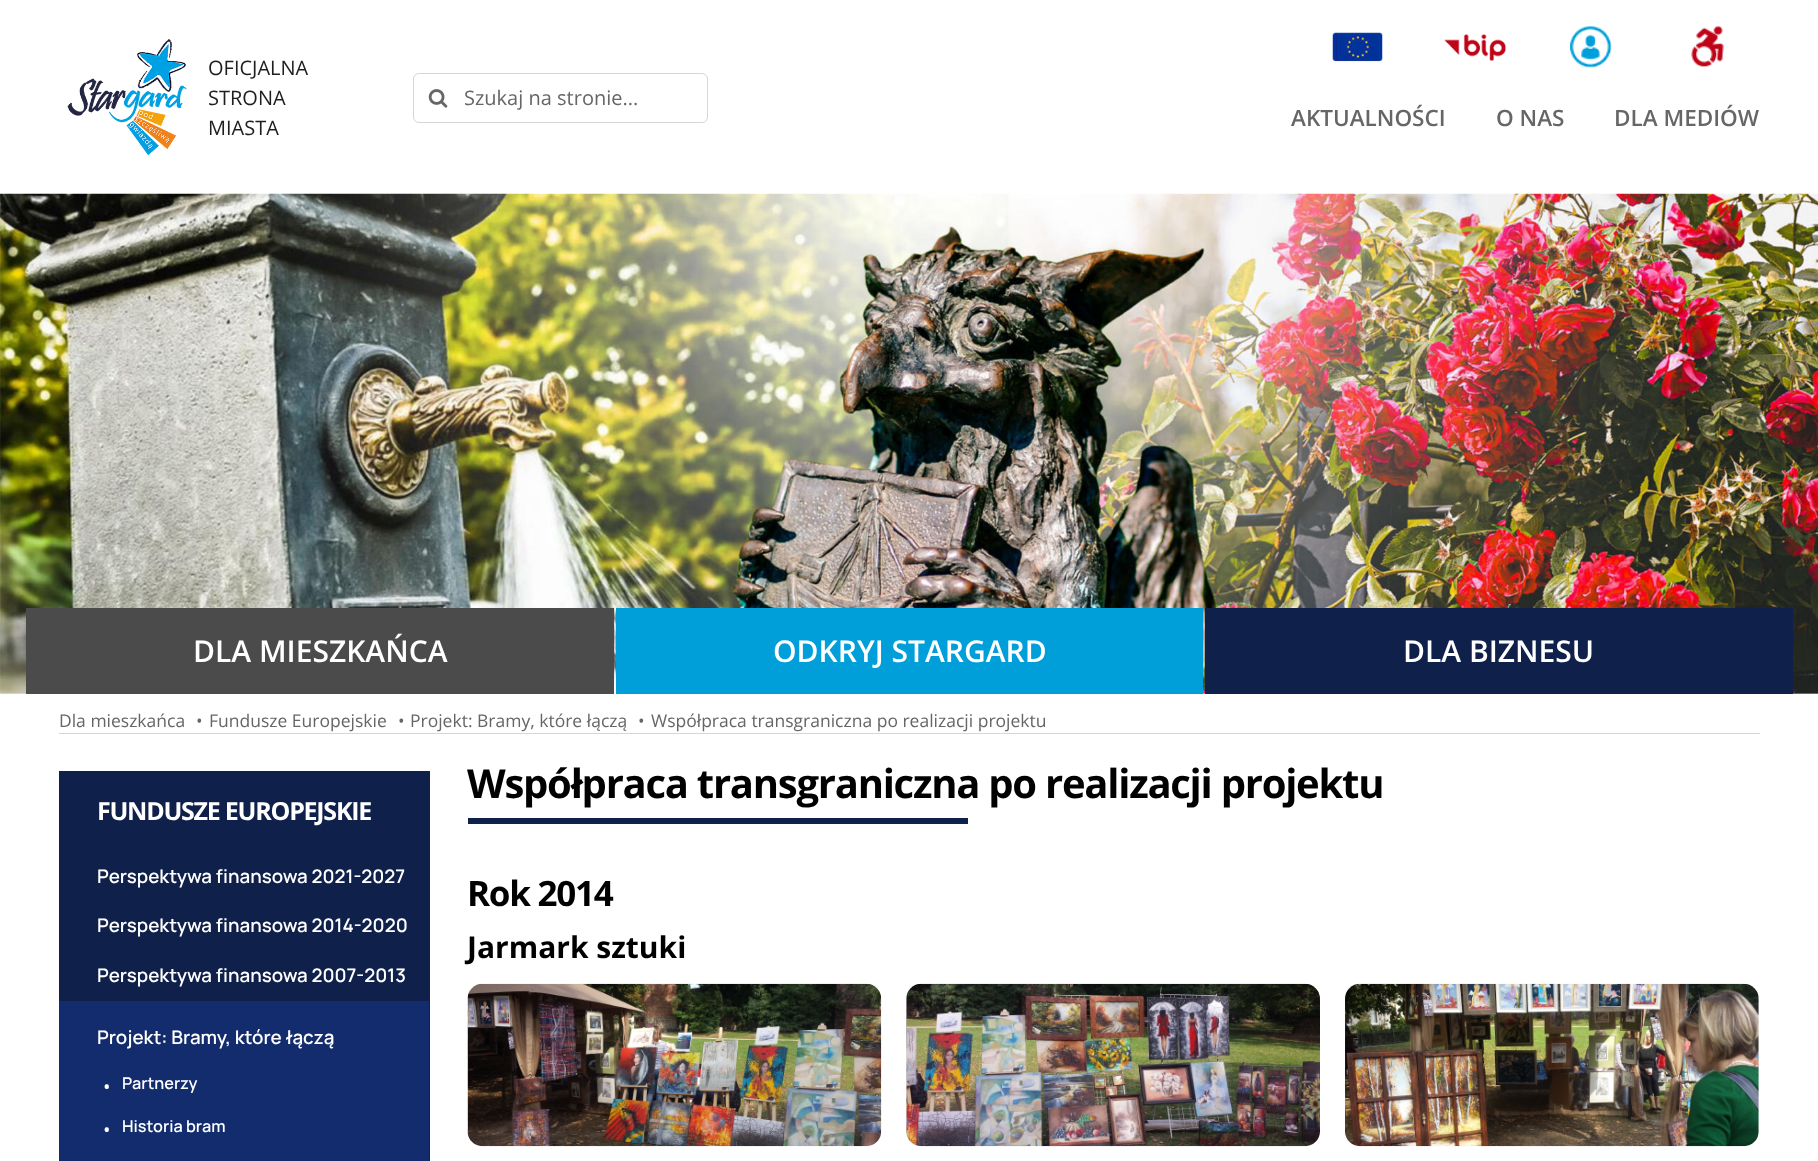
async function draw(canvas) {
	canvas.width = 1818;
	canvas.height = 1161;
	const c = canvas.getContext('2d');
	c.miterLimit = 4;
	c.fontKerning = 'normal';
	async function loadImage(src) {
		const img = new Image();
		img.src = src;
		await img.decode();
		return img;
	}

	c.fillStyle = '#fff';
	c.fillRect(0, 0, 1818, 1161);
	c.drawImage(await loadImage('img1.png'), 67, 39, 120, 117);
	c.font = '20px Open Sans';
	c.fillStyle = '#1e1e1e';
	for (const [text, x, y] of [
		['OFICJALNA', 208, 75],
		['STRONA', 208, 105],
		['MIASTA', 208, 135],
	]) {
		c.fillText(text, x, y);
	}
	c.beginPath();
	c.roundRect(413.5, 73.5, 294, 49, 5.5);
	c.strokeStyle = '#d6d6d6';
	c.stroke();
	c.drawImage(await loadImage('img2.png'), 428, 89, 20, 19);
	c.fillStyle = '#666';
	c.fillText('Szukaj na stronie...', 464, 105);
	c.drawImage(await loadImage('img3.png'), 1332, 32, 51, 30);
	c.drawImage(await loadImage('img4.png'), 1444, 34, 62, 27);
	c.drawImage(await loadImage('img5.png'), 1570, 26, 42, 42);
	c.drawImage(await loadImage('img6.png'), 1691, 26, 33, 41);
	c.font = '600 22.5px Open Sans';
	for (const [text, x, y] of [
		['AKTUALNOŚCI', 1291, 126],
		['O NAS', 1496, 126],
		['DLA MEDIÓW', 1614, 126],
	]) {
		c.fillText(text, x, y);
	}
	c.drawImage(await loadImage('img7.png'), 0, 193, 1818, 501);
	c.fillStyle = '#4b4b4b';
	c.fillRect(26, 608, 588, 86);
	c.font = '600 30px Open Sans';
	c.fillStyle = '#fff';
	c.fillText('DLA MIESZKAŃCA', 193, 662);
	c.fillStyle = '#009fda';
	c.fillRect(616, 608, 587, 86);
	c.fillStyle = '#fff';
	c.fillText('ODKRYJ STARGARD', 773, 662);
	c.fillStyle = '#0f204b';
	c.fillRect(1205, 608, 588, 86);
	c.fillStyle = '#fff';
	c.fillText('DLA BIZNESU', 1403, 662);
	c.font = '17.5px Open Sans';
	c.fillStyle = '#666';
	for (const [text, x, y] of [
		['Dla mieszkańca', 59, 727],
		['•', 196, 727],
		['Fundusze Europejskie', 209, 727],
		['•', 398, 727],
		['Projekt: Bramy, które łączą', 410, 727],
		['•', 638, 727],
		['Współpraca transgraniczna po realizacji projektu', 651, 727],
	]) {
		c.fillText(text, x, y);
	}
	c.fillStyle = '#d6d6d6';
	c.fillRect(59, 733, 1701, 1);
	c.fillStyle = '#0f204b';
	c.fillRect(59, 771, 371, 390);
	c.letterSpacing = '-1.25px';
	c.font = 'bold 25px Open Sans';
	c.fillStyle = '#fff';
	c.fillText('FUNDUSZE EUROPEJSKIE', 97, 820);
	c.letterSpacing = '0px';
	c.font = '200 18.75px Manrope';
	for (const [text, x, y] of [
		['Perspektywa finansowa 2021-2027', 97, 883],
		['Perspektywa finansowa 2014-2020', 97, 932],
		['Perspektywa finansowa 2007-2013', 97, 982],
	]) {
		c.fillText(text, x, y);
	}
	c.fillStyle = '#122c6d';
	c.fillRect(59, 1001, 370, 160);
	c.fillStyle = '#fff';
	c.fillText('Projekt: Bramy, które łączą', 97, 1044);
	c.font = '20px Open Sans';
	c.fillText('•', 103, 1094);
	c.font = '200 16.25px Manrope';
	c.fillText('Partnerzy', 122, 1089);
	c.font = '20px Open Sans';
	c.fillText('•', 103, 1137);
	c.font = '200 16.25px Manrope';
	c.fillText('Historia bram', 122, 1132);
	c.letterSpacing = '-1.25px';
	c.font = 'bold 40px Open Sans';
	c.fillStyle = '#000';
	c.fillText('Współpraca transgraniczna po realizacji projektu', 467, 798);
	c.fillStyle = '#0f204b';
	c.fillRect(468, 818, 500, 6);
	c.font = 'bold 35px Open Sans';
	c.fillStyle = '#000';
	c.fillText('Rok 2014', 467, 906);
	c.letterSpacing = '0px';
	c.font = 'bold 30px Open Sans';
	c.fillText('Jarmark sztuki', 467, 958);
	c.drawImage(await loadImage('img8.png'), 467, 983, 415, 164);
	c.drawImage(await loadImage('img9.png'), 906, 983, 414, 164);
	c.drawImage(await loadImage('img10.png'), 1345, 983, 414, 164);
}

draw(document.querySelector('canvas'));
